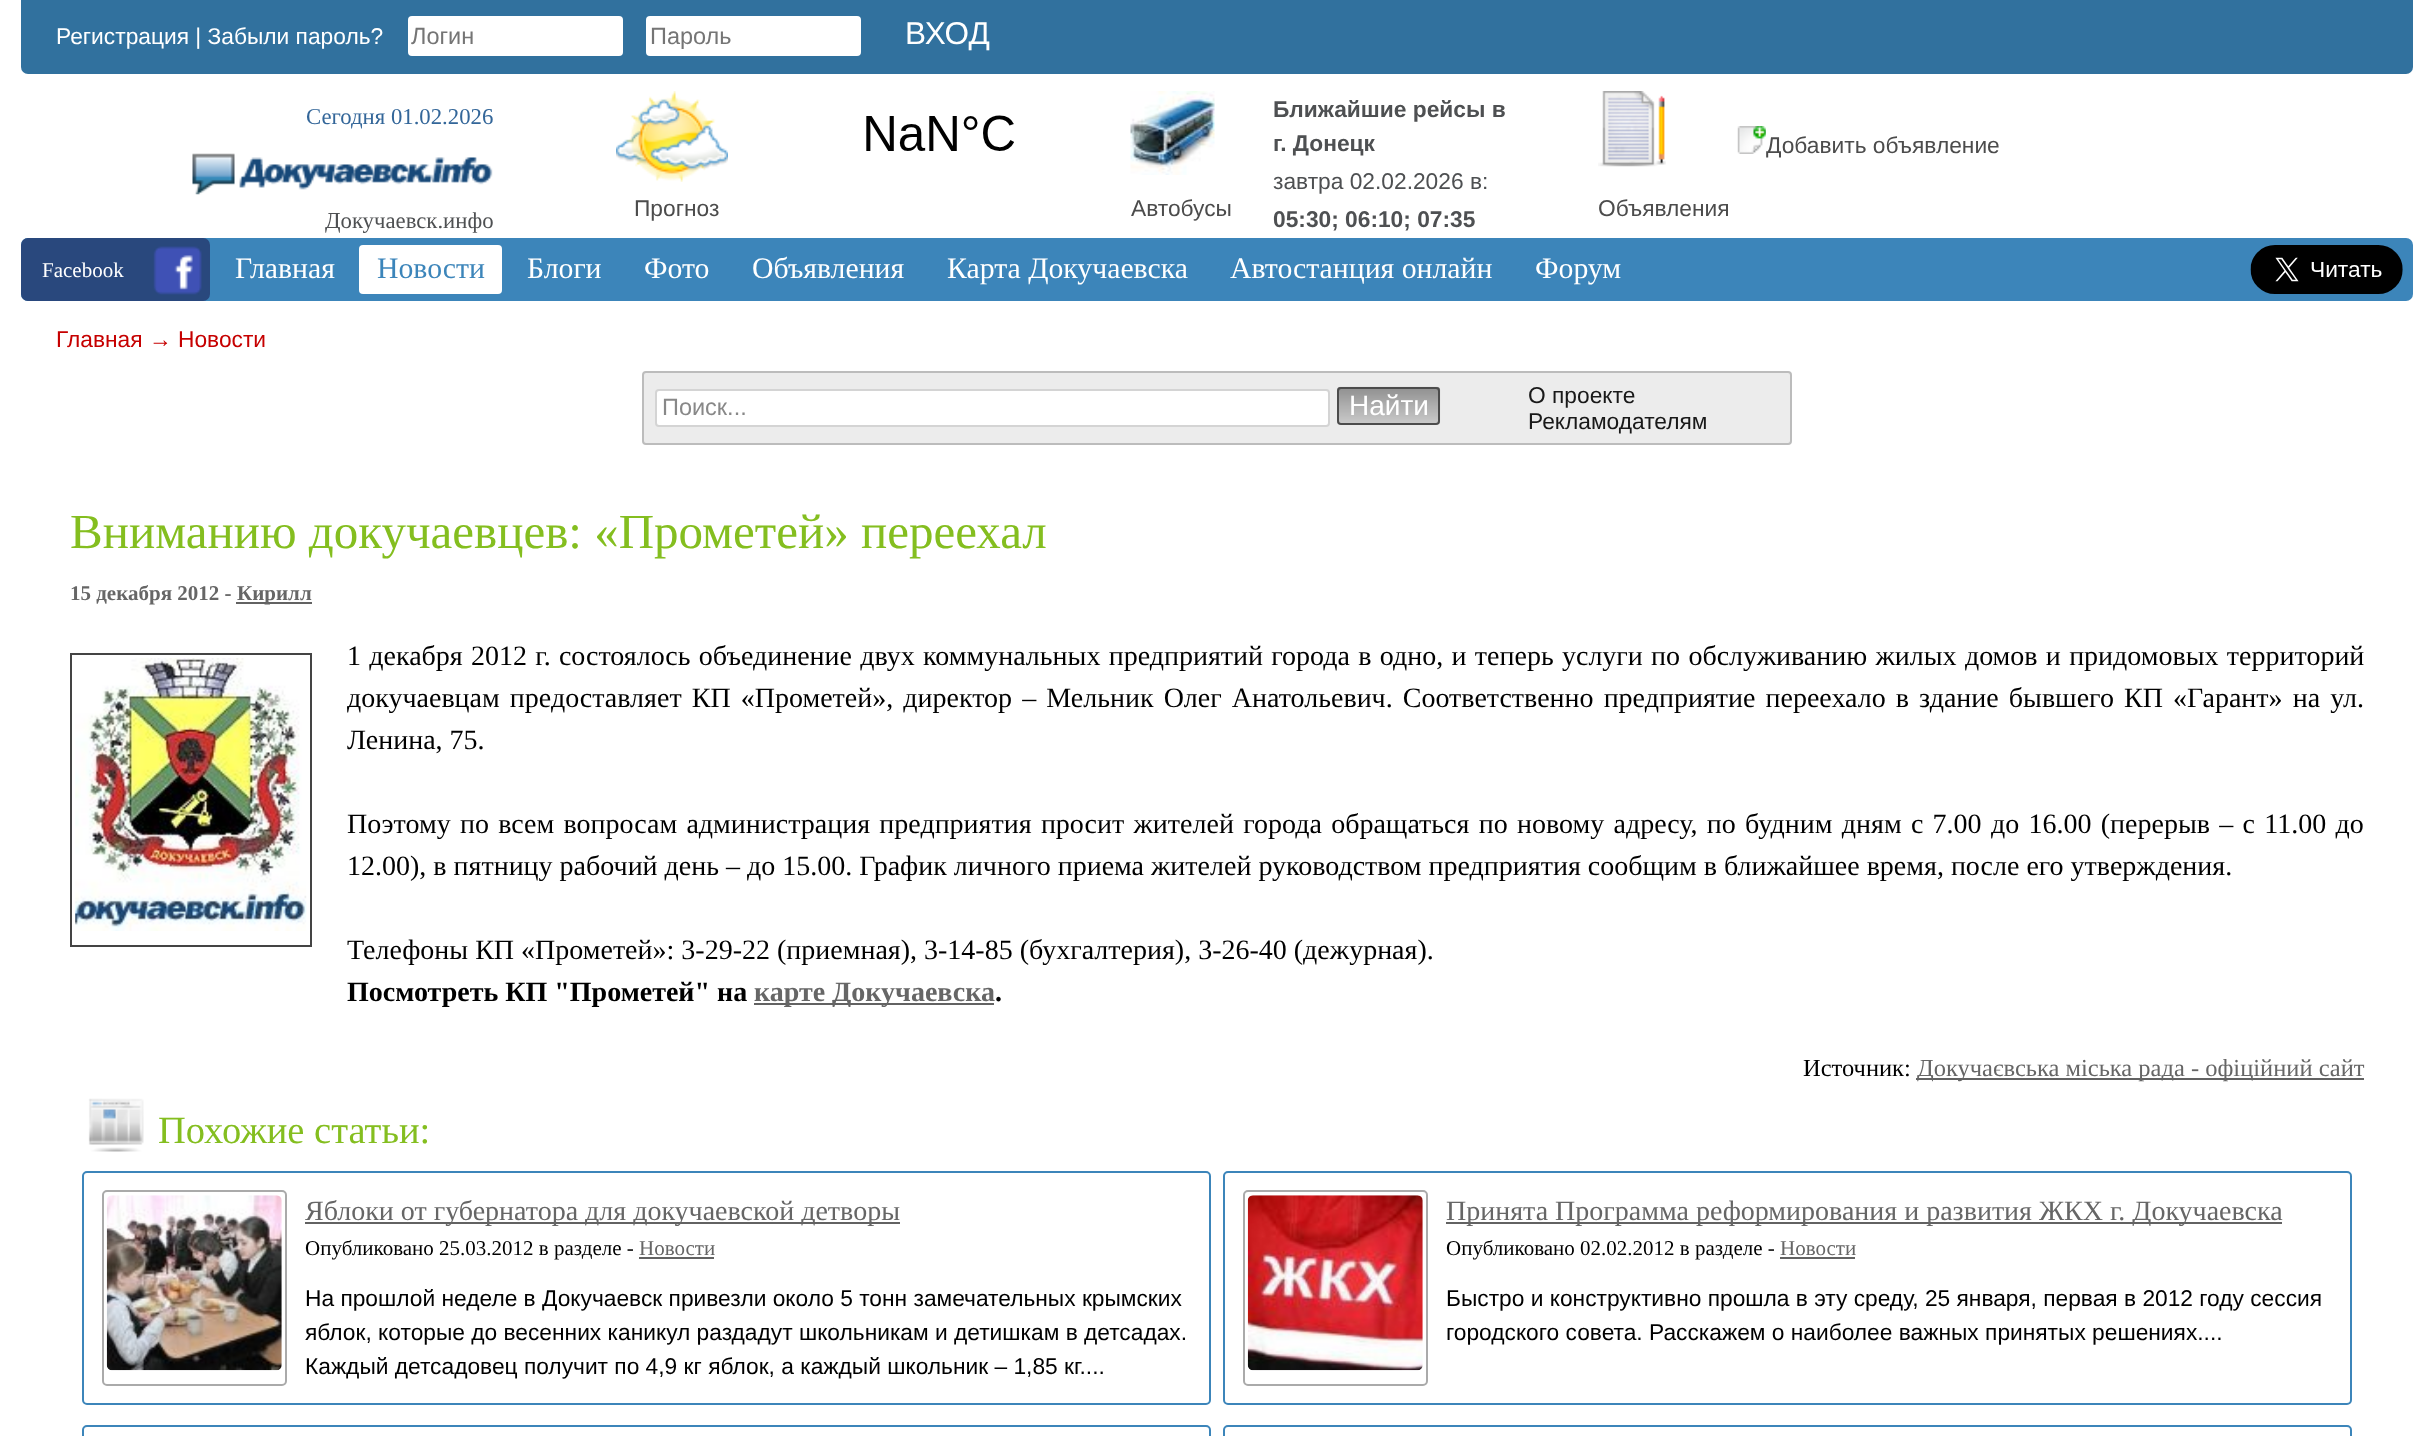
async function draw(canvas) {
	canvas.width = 2434;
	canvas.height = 1436;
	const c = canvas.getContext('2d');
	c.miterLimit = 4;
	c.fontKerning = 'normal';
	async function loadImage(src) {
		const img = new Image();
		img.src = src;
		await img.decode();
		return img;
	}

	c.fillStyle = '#fff';
	c.fillRect(0, 0, 2434, 1436);
	c.fillStyle = '#31719e';
	c.beginPath();
	c.roundRect(21, 0, 2392, 74, [0, 0, 7, 7]);
	c.fill();
	c.font = '22.75px Liberation Sans';
	c.fillStyle = '#fff';
	c.fillText('Регистрация | Забыли пароль?', 56, 44);
	c.beginPath();
	c.roundRect(408, 16, 215, 40, 4);
	c.fill();
	c.font = '23.5px Liberation Sans';
	c.fillStyle = '#757575';
	c.fillText('Логин', 411, 44);
	c.fillStyle = '#fff';
	c.beginPath();
	c.roundRect(646, 16, 215, 40, 4);
	c.fill();
	c.fillStyle = '#757575';
	c.fillText('Пароль', 650, 44);
	c.font = '31.5px Liberation Sans';
	c.fillStyle = '#fff';
	c.fillText('ВХОД', 905, 44);
	c.font = '22.75px Liberation Serif';
	c.fillStyle = '#369';
	c.fillText('Сегодня 01.02.2026', 306, 124);
	c.drawImage(await loadImage('img1.png'), 192, 153, 301, 42);
	c.fillStyle = '#4e5052';
	c.fillText('Докучаевск.инфо', 325, 228);
	c.drawImage(await loadImage('img2.png'), 866, 115, 148, 36);
	c.drawImage(await loadImage('img3.png'), 616, 91, 112, 91);
	c.font = '22.75px Liberation Sans';
	c.fillStyle = '#4c4c4c';
	c.fillText('Прогноз', 634, 216);
	c.drawImage(await loadImage('img4.png'), 1130, 91, 85, 84);
	c.fillText('Автобусы', 1131, 216);
	c.font = 'bold 22.75px Liberation Sans';
	c.fillStyle = '#4e5052';
	c.fillText('Ближайшие рейсы в', 1273, 117);
	c.fillText('г. Донецк', 1273, 151);
	c.font = '22.75px Liberation Sans';
	c.fillText('завтра 02.02.2026 в:', 1273, 189);
	c.font = 'bold 22.75px Liberation Sans';
	c.fillText('05:30; 06:10; 07:35', 1273, 227);
	c.drawImage(await loadImage('img5.png'), 1737, 126, 29, 28);
	c.font = '22.75px Liberation Sans';
	c.fillStyle = '#4c4c4c';
	c.fillText('Добавить объявление', 1766, 153);
	c.drawImage(await loadImage('img6.png'), 1598, 91, 68, 76);
	c.fillText('Объявления', 1598, 216);
	c.fillStyle = '#3c85ba';
	c.beginPath();
	c.roundRect(21, 238, 2392, 63, 7);
	c.fill();
	c.fillStyle = '#29487d';
	c.beginPath();
	c.roundRect(21, 238, 189, 63, 7);
	c.fill();
	c.font = '21px Liberation Serif';
	c.fillStyle = '#fff';
	c.fillText('Facebook', 42, 277);
	c.drawImage(await loadImage('img7.png'), 153, 246, 49, 49);
	c.font = '29.75px Liberation Serif';
	c.fillText('Главная', 235, 278);
	c.beginPath();
	c.roundRect(359, 245, 143, 49, 4);
	c.fill();
	c.fillStyle = '#3c85ba';
	c.fillText('Новости', 377, 278);
	c.fillStyle = '#fff';
	for (const [text, x, y] of [
		['Блоги', 527, 278],
		['Фото', 644, 278],
		['Объявления', 752, 278],
		['Карта Докучаевска', 947, 278],
		['Автостанция онлайн', 1230, 278],
		['Форум', 1535, 278],
	]) {
		c.fillText(text, x, y);
	}
	c.drawImage(await loadImage('img8.png'), 2250, 245, 153, 49);
	c.font = '22.75px Liberation Sans';
	c.fillStyle = '#c60000';
	c.fillText('Главная → Новости', 56, 347);
	c.fillStyle = '#ececec';
	c.beginPath();
	c.roundRect(643, 372, 1148, 72, 3);
	c.fill();
	c.strokeStyle = '#bcbcbc';
	c.lineWidth = 2;
	c.stroke();
	c.fillStyle = '#fff';
	c.beginPath();
	c.roundRect(656, 390, 673, 36, 3);
	c.fill();
	c.strokeStyle = '#d4d4d4';
	c.stroke();
	c.font = '23.5px Liberation Sans';
	c.fillStyle = '#888';
	c.fillText('Поиск...', 662, 415);
	c.drawImage(await loadImage('img9.png'), 1337, 386, 104, 38);
	c.beginPath();
	c.roundRect(1338, 388, 101, 36, 3);
	c.strokeStyle = '#4c4c4c';
	c.stroke();
	c.font = '28px Liberation Sans';
	c.fillStyle = '#fff';
	c.fillText('Найти', 1349, 415);
	c.font = '22.75px Liberation Sans';
	c.fillStyle = '#191919';
	c.fillText('О проекте', 1528, 403);
	c.fillText('Рекламодателям', 1528, 429);
	c.font = '49px Liberation Serif';
	c.fillStyle = '#84be1f';
	c.fillText('Вниманию докучаевцев: «Прометей» переехал', 70, 548);
	c.font = 'bold 21px Liberation Serif';
	c.fillStyle = '#666';
	c.fillText('15 декабря 2012 -', 70, 600);
	c.fillStyle = '#626262';
	c.fillRect(236, 602, 76, 2);
	c.fillStyle = '#666';
	c.fillText('Кирилл', 237, 600);
	c.strokeStyle = '#444';
	c.strokeRect(71, 654, 240, 292);
	c.drawImage(await loadImage('img10.png'), 75, 658, 232, 273);
	c.wordSpacing = '1.3px';
	c.font = '28px Liberation Serif';
	c.fillStyle = '#000';
	c.fillText('1 декабря 2012 г. состоялось объединение двух коммунальных предприятий города в одно, и теперь услуги по обслуживанию жилых домов и придомовых территорий', 347, 665);
	c.wordSpacing = '3.1px';
	c.fillText('докучаевцам предоставляет КП «Прометей», директор – Мельник Олег Анатольевич. Соответственно предприятие переехало в здание бывшего КП «Гарант» на ул.', 347, 707);
	c.wordSpacing = '0px';
	c.fillText('Ленина, 75.', 347, 749);
	c.wordSpacing = '2.3px';
	c.fillText('Поэтому по всем вопросам администрация предприятия просит жителей города обращаться по новому адресу, по будним дням с 7.00 до 16.00 (перерыв – с 11.00 до', 347, 833);
	c.wordSpacing = '0px';
	c.fillText('12.00), в пятницу рабочий день – до 15.00. График личного приема жителей руководством предприятия сообщим в ближайшее время, после его утверждения.', 347, 875);
	c.fillText('Телефоны КП «Прометей»: 3-29-22 (приемная), 3-14-85 (бухгалтерия), 3-26-40 (дежурная).', 347, 959);
	c.font = 'bold 28px Liberation Serif';
	c.fillText('Посмотреть КП "Прометей" на', 347, 1001);
	c.fillStyle = '#626262';
	c.fillRect(754, 1003, 240, 2);
	c.fillStyle = '#666';
	c.fillText('карте Докучаевска', 754, 1001);
	c.fillStyle = '#000';
	c.fillText('.', 995, 1001);
	c.font = '24.5px Liberation Serif';
	c.fillText('Источник:', 1803, 1076);
	c.fillStyle = '#626262';
	c.fillRect(1916, 1078, 448, 2);
	c.fillStyle = '#666';
	c.fillText('Докучаєвська мiська рада - офіційний сайт', 1917, 1076);
	c.drawImage(await loadImage('img11.png'), 88, 1098, 56, 54);
	c.font = '38.5px Liberation Serif';
	c.fillStyle = '#84be1f';
	c.fillText('Похожие статьи:', 158, 1143);
	c.beginPath();
	c.roundRect(83, 1172, 1127, 232, 4);
	c.strokeStyle = '#3c85ba';
	c.stroke();
	c.beginPath();
	c.roundRect(103, 1191, 183, 194, 4);
	c.strokeStyle = '#aaa';
	c.stroke();
	c.drawImage(await loadImage('img12.png'), 106, 1195, 176, 176);
	c.fillStyle = '#626262';
	c.fillRect(305, 1222, 595, 2);
	c.font = '28px Liberation Serif';
	c.fillStyle = '#666';
	c.fillText('Яблоки от губернатора для докучаевской детворы', 305, 1220);
	c.font = '21px Liberation Serif';
	c.fillStyle = '#000';
	c.fillText('Опубликовано 25.03.2012 в разделе -', 305, 1255);
	c.fillStyle = '#666';
	c.fillText('Новости', 639, 1255);
	c.fillStyle = '#626262';
	c.fillRect(639, 1257, 75, 2);
	c.font = '22.75px Liberation Sans';
	c.fillStyle = '#000';
	for (const [text, x, y] of [
		['На прошлой неделе в Докучаевск привезли около 5 тонн замечательных крымских', 305, 1306],
		['яблок, которые до весенних каникул раздадут школьникам и детишкам в детсадах.', 305, 1340],
		['Каждый детсадовец получит по 4,9 кг яблок, а каждый школьник – 1,85 кг....', 305, 1374],
	]) {
		c.fillText(text, x, y);
	}
	c.beginPath();
	c.roundRect(1224, 1172, 1127, 232, 4);
	c.strokeStyle = '#3c85ba';
	c.stroke();
	c.beginPath();
	c.roundRect(1244, 1191, 183, 194, 4);
	c.strokeStyle = '#aaa';
	c.stroke();
	c.drawImage(await loadImage('img13.png'), 1247, 1195, 176, 176);
	c.fillStyle = '#626262';
	c.fillRect(1446, 1222, 836, 2);
	c.font = '28px Liberation Serif';
	c.fillStyle = '#666';
	c.fillText('Принята Программа реформирования и развития ЖКХ г. Докучаевска', 1446, 1220);
	c.font = '21px Liberation Serif';
	c.fillStyle = '#000';
	c.fillText('Опубликовано 02.02.2012 в разделе -', 1446, 1255);
	c.fillStyle = '#666';
	c.fillText('Новости', 1780, 1255);
	c.fillStyle = '#626262';
	c.fillRect(1780, 1257, 75, 2);
	c.font = '22.75px Liberation Sans';
	c.fillStyle = '#000';
	c.fillText('Быстро и конструктивно прошла в эту среду, 25 января, первая в 2012 году сессия', 1446, 1306);
	c.fillText('городского совета. Расскажем о наиболее важных принятых решениях....', 1446, 1340);
	c.beginPath();
	c.roundRect(83, 1426, 1127, 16, 4);
	c.strokeStyle = '#3c85ba';
	c.stroke();
	c.beginPath();
	c.roundRect(1224, 1426, 1127, 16, 4);
	c.stroke();
}

draw(document.querySelector('canvas'));
